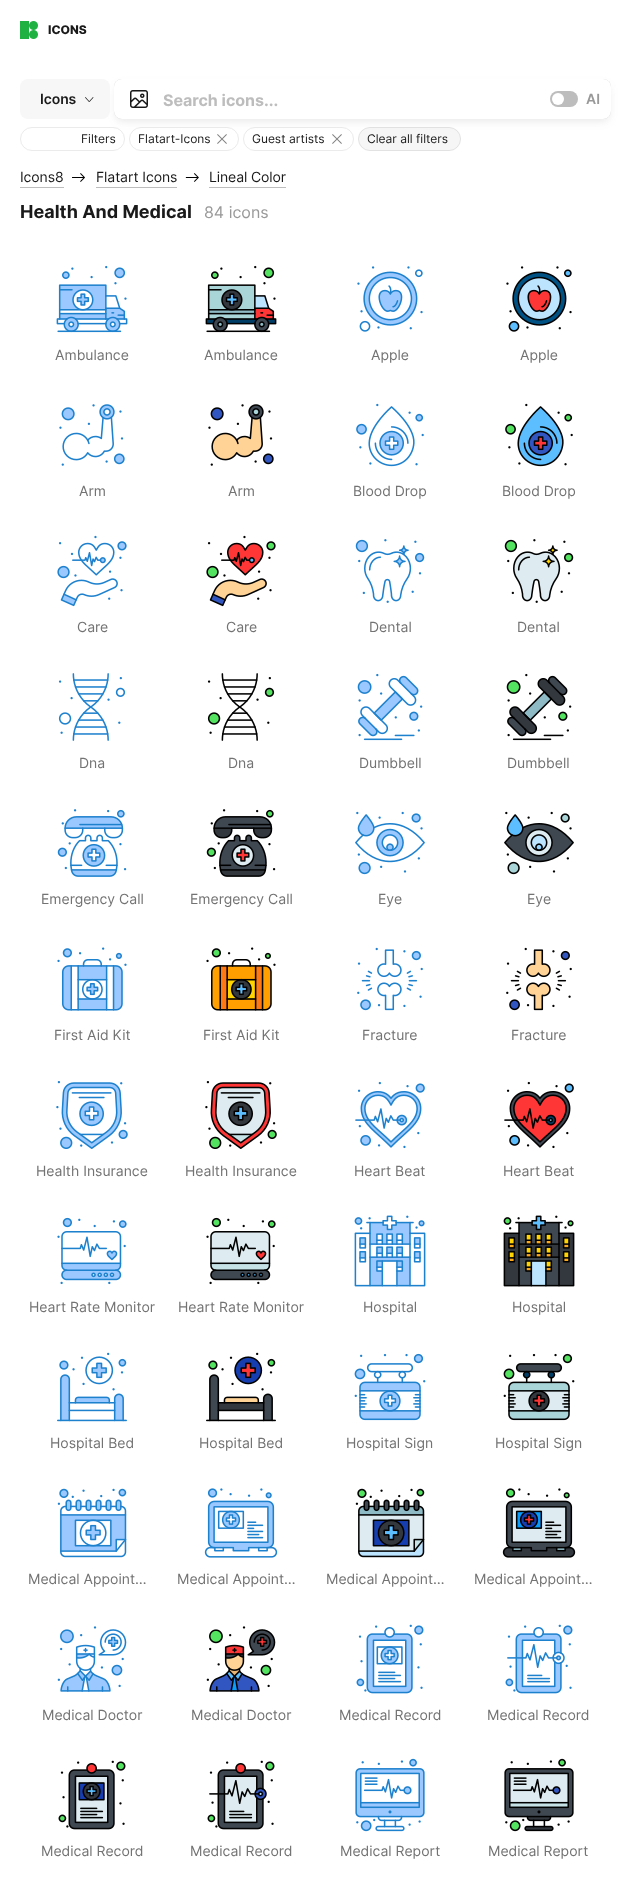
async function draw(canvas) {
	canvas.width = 621;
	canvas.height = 1878;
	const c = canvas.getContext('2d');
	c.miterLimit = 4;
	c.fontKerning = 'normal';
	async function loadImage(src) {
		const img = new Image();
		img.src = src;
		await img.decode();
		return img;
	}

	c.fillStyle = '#fff';
	c.fillRect(0, 0, 621, 1878);
	c.drawImage(await loadImage('img1.png'), 20, 21, 18, 18);
	c.font = '800 12px Inter';
	c.fillStyle = '#1a1a1a';
	c.fillText('ICONS', 48, 34);
	c.beginPath();
	c.roundRect(20.5, 127.5, 104, 23, 11.5);
	c.strokeStyle = '#ebebeb';
	c.stroke();
	c.beginPath();
	c.roundRect(129.5, 127.5, 109, 23, 11.5);
	c.stroke();
	c.beginPath();
	c.roundRect(243.5, 127.5, 110, 23, 11.5);
	c.stroke();
	c.fillStyle = '#f6f6f6';
	c.beginPath();
	c.roundRect(358, 127, 103, 24, 12);
	c.fill();
	c.beginPath();
	c.roundRect(358.5, 127.5, 102, 23, 11.5);
	c.strokeStyle = '#00000014';
	c.stroke();
	c.fillStyle = '#60606026';
	c.filter = 'blur(4px)';
	c.beginPath();
	c.roundRect(116, 85, 493, 36, 6);
	c.fill();
	c.filter = 'none';
	c.fillStyle = '#f7f7f7';
	c.beginPath();
	c.roundRect(20, 79, 90, 40, 8);
	c.fill();
	c.letterSpacing = '-0.1px';
	c.font = '600 14px Inter';
	c.fillStyle = '#1a1a1a';
	c.fillText('Icons', 40, 104);
	c.beginPath();
	c.moveTo(85.5, 97);
	c.lineTo(89.5, 101.5);
	c.lineTo(89, 102);
	c.lineTo(85, 97.5);
	c.closePath();
	c.fill();
	c.beginPath();
	c.moveTo(89, 101.5);
	c.lineTo(93, 97);
	c.lineTo(93.5, 97.5);
	c.lineTo(89.5, 102);
	c.closePath();
	c.fill();
	c.fillStyle = '#6060604f';
	c.filter = 'blur(0.5px)';
	c.beginPath();
	c.roundRect(114, 79, 497, 40, 8);
	c.fill();
	c.filter = 'none';
	c.fillStyle = '#fff';
	c.beginPath();
	c.roundRect(114, 79, 497, 40, 8);
	c.fill();
	c.drawImage(await loadImage('img2.png'), 130, 90, 18, 18);
	c.letterSpacing = '0px';
	c.font = 'bold 16px Inter';
	c.fillStyle = '#bdbdbd';
	c.fillText('Search icons...', 163, 106);
	c.beginPath();
	c.roundRect(550, 91, 28, 16, 8);
	c.fill();
	c.fillStyle = '#fff';
	c.beginPath();
	c.arc(558, 99, 6, 0, 2 * Math.PI);
	c.fill();
	c.font = '600 14px Inter';
	c.fillStyle = '#999';
	c.fillText('AI', 586, 104);
	c.font = '12px Inter';
	c.fillStyle = '#1a1a1a';
	c.fillText('Filters', 81, 143);
	c.fillText('Flatart-Icons', 138, 143);
	c.drawImage(await loadImage('img3.png'), 217, 134, 10, 10);
	c.fillText('Guest artists', 252, 143);
	c.drawImage(await loadImage('img3.png'), 332, 134, 10, 10);
	c.fillText('Clear all filters', 367, 143);
	c.fillStyle = '#bdbdbd';
	c.fillRect(20, 187, 44, 1);
	c.letterSpacing = '-0.1px';
	c.font = '14px Inter';
	c.fillStyle = '#1a1a1a';
	c.fillText('Icons8', 20, 182);
	c.drawImage(await loadImage('img4.png'), 72, 173, 13, 9);
	c.fillStyle = '#bdbdbd';
	c.fillRect(96, 187, 81, 1);
	c.fillStyle = '#1a1a1a';
	c.fillText('Flatart Icons', 96, 182);
	c.drawImage(await loadImage('img5.png'), 185, 173, 14, 9);
	c.fillStyle = '#bdbdbd';
	c.fillRect(209, 187, 77, 1);
	c.fillStyle = '#1a1a1a';
	c.fillText('Lineal Color', 209, 182);
	c.letterSpacing = '0px';
	c.font = 'bold 18px Inter';
	c.fillText('Health And Medical', 20, 218);
	c.font = '16px Inter';
	c.fillStyle = '#999';
	c.fillText('84 icons', 204, 218);
	c.drawImage(await loadImage('img6.png'), 56, 265, 72, 68);
	c.font = '14px Inter';
	c.fillStyle = '#737373';
	c.fillText('Ambulance', 55, 360);
	c.drawImage(await loadImage('img7.png'), 205, 265, 72, 68);
	c.fillText('Ambulance', 204, 360);
	c.drawImage(await loadImage('img8.png'), 357, 266, 66, 66);
	c.fillText('Apple', 371, 360);
	c.drawImage(await loadImage('img9.png'), 506, 266, 66, 66);
	c.fillText('Apple', 520, 360);
	c.drawImage(await loadImage('img10.png'), 59, 404, 66, 62);
	c.fillText('Arm', 79, 496);
	c.drawImage(await loadImage('img11.png'), 208, 404, 66, 62);
	c.fillText('Arm', 228, 496);
	c.drawImage(await loadImage('img12.png'), 356, 403, 68, 64);
	c.fillText('Blood Drop', 353, 496);
	c.drawImage(await loadImage('img13.png'), 505, 403, 68, 64);
	c.fillText('Blood Drop', 502, 496);
	c.drawImage(await loadImage('img14.png'), 57, 535, 70, 72);
	c.fillText('Care', 77, 632);
	c.drawImage(await loadImage('img15.png'), 206, 535, 70, 72);
	c.fillText('Care', 226, 632);
	c.drawImage(await loadImage('img16.png'), 355, 539, 70, 64);
	c.fillText('Dental', 369, 632);
	c.drawImage(await loadImage('img17.png'), 504, 539, 70, 64);
	c.fillText('Dental', 517, 632);
	c.drawImage(await loadImage('img18.png'), 58, 673, 68, 68);
	c.fillText('Dna', 79, 768);
	c.drawImage(await loadImage('img19.png'), 207, 673, 68, 68);
	c.fillText('Dna', 228, 768);
	c.drawImage(await loadImage('img20.png'), 357, 673, 66, 68);
	c.fillText('Dumbbell', 359, 768);
	c.drawImage(await loadImage('img21.png'), 506, 673, 66, 68);
	c.fillText('Dumbbell', 507, 768);
	c.drawImage(await loadImage('img22.png'), 57, 809, 70, 68);
	c.fillText('Emergency Call', 41, 904);
	c.drawImage(await loadImage('img23.png'), 206, 809, 70, 68);
	c.fillText('Emergency Call', 190, 904);
	c.drawImage(await loadImage('img24.png'), 355, 811, 70, 64);
	c.fillText('Eye', 378, 904);
	c.drawImage(await loadImage('img25.png'), 504, 811, 70, 64);
	c.fillText('Eye', 527, 904);
	c.drawImage(await loadImage('img26.png'), 57, 947, 70, 64);
	c.fillText('First Aid Kit', 54, 1040);
	c.drawImage(await loadImage('img27.png'), 206, 947, 70, 64);
	c.fillText('First Aid Kit', 203, 1040);
	c.drawImage(await loadImage('img28.png'), 357, 947, 66, 64);
	c.fillText('Fracture', 362, 1040);
	c.drawImage(await loadImage('img29.png'), 506, 947, 66, 64);
	c.fillText('Fracture', 511, 1040);
	c.drawImage(await loadImage('img30.png'), 56, 1081, 72, 68);
	c.fillText('Health Insurance', 36, 1176);
	c.drawImage(await loadImage('img31.png'), 205, 1081, 72, 68);
	c.fillText('Health Insurance', 185, 1176);
	c.drawImage(await loadImage('img32.png'), 355, 1081, 70, 68);
	c.fillText('Heart Beat', 354, 1176);
	c.drawImage(await loadImage('img33.png'), 504, 1081, 70, 68);
	c.fillText('Heart Beat', 503, 1176);
	c.drawImage(await loadImage('img34.png'), 57, 1217, 70, 68);
	c.fillText('Heart Rate Monitor', 29, 1312);
	c.drawImage(await loadImage('img35.png'), 206, 1217, 70, 68);
	c.fillText('Heart Rate Monitor', 178, 1312);
	c.drawImage(await loadImage('img36.png'), 354, 1215, 72, 72);
	c.fillText('Hospital', 363, 1312);
	c.drawImage(await loadImage('img37.png'), 503, 1215, 72, 72);
	c.fillText('Hospital', 512, 1312);
	c.drawImage(await loadImage('img38.png'), 57, 1352, 70, 70);
	c.fillText('Hospital Bed', 50, 1448);
	c.drawImage(await loadImage('img39.png'), 206, 1352, 70, 70);
	c.fillText('Hospital Bed', 199, 1448);
	c.drawImage(await loadImage('img40.png'), 354, 1353, 72, 68);
	c.fillText('Hospital Sign', 346, 1448);
	c.drawImage(await loadImage('img41.png'), 503, 1353, 72, 68);
	c.fillText('Hospital Sign', 495, 1448);
	c.drawImage(await loadImage('img42.png'), 57, 1488, 70, 70);
	c.fillText('Medical Appoint…', 28, 1584);
	c.drawImage(await loadImage('img43.png'), 204, 1488, 74, 70);
	c.fillText('Medical Appoint…', 177, 1584);
	c.drawImage(await loadImage('img44.png'), 355, 1488, 70, 70);
	c.fillText('Medical Appoint…', 326, 1584);
	c.drawImage(await loadImage('img45.png'), 502, 1488, 74, 70);
	c.fillText('Medical Appoint…', 474, 1584);
	c.drawImage(await loadImage('img46.png'), 57, 1626, 70, 66);
	c.fillText('Medical Doctor', 42, 1720);
	c.drawImage(await loadImage('img47.png'), 206, 1626, 70, 66);
	c.fillText('Medical Doctor', 191, 1720);
	c.drawImage(await loadImage('img48.png'), 356, 1624, 68, 70);
	c.fillText('Medical Record', 339, 1720);
	c.drawImage(await loadImage('img49.png'), 505, 1624, 68, 70);
	c.fillText('Medical Record', 487, 1720);
	c.drawImage(await loadImage('img50.png'), 58, 1760, 68, 70);
	c.fillText('Medical Record', 41, 1856);
	c.drawImage(await loadImage('img51.png'), 207, 1760, 68, 70);
	c.fillText('Medical Record', 190, 1856);
	c.drawImage(await loadImage('img52.png'), 355, 1758, 70, 74);
	c.fillText('Medical Report', 340, 1856);
	c.drawImage(await loadImage('img53.png'), 504, 1758, 70, 74);
	c.fillText('Medical Report', 488, 1856);
}

draw(document.querySelector('canvas'));
